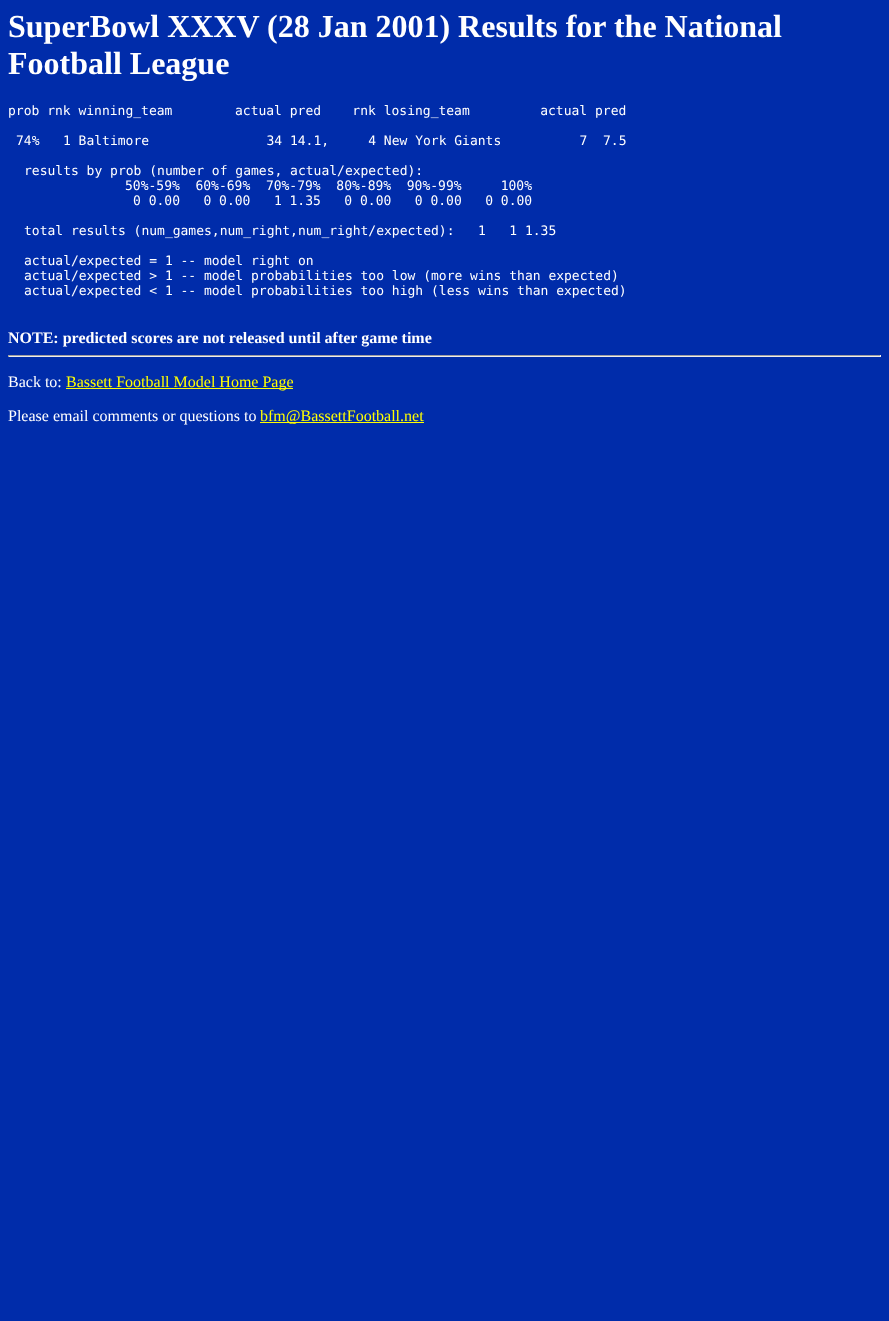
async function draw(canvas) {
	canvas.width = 889;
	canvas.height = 1321;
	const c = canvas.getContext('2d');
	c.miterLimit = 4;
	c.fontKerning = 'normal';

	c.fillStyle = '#002caa';
	c.fillRect(0, 0, 889, 1321);
	c.font = 'bold 32px Liberation Serif';
	c.fillStyle = '#fff';
	c.fillText('SuperBowl XXXV (28 Jan 2001) Results for the National', 8, 37);
	c.fillText('Football League', 8, 74);
	c.font = '13px DejaVu Sans Mono';
	for (const [text, x, y] of [
		['prob rnk winning_team        actual pred    rnk losing_team         actual pred', 8, 115],
		['74%   1 Baltimore               34 14.1,     4 New York Giants          7  7.5', 16, 145],
		['results by prob (number of games, actual/expected):', 24, 175],
		['50%-59%  60%-69%  70%-79%  80%-89%  90%-99%     100%', 125, 190],
		['0 0.00   0 0.00   1 1.35   0 0.00   0 0.00   0 0.00', 133, 205],
		['total results (num_games,num_right,num_right/expected):   1   1 1.35', 24, 235],
		['actual/expected = 1 -- model right on', 24, 265],
		['actual/expected > 1 -- model probabilities too low (more wins than expected)', 24, 280],
		['actual/expected < 1 -- model probabilities too high (less wins than expected)', 24, 295],
	]) {
		c.fillText(text, x, y);
	}
	c.font = 'bold 16px Liberation Serif';
	c.fillText('NOTE: predicted scores are not released until after game time', 8, 343);
	for (const [x, y, w, h, color] of [
		[8, 355, 873, 1, '#9f9f9f'],
		[880, 355, 1, 2, '#eee'],
		[8, 356, 873, 1, '#eee'],
		[8, 355, 1, 2, '#9f9f9f'],
	]) {
		c.fillStyle = color;
		c.fillRect(x, y, w, h);
	}
	c.font = '16px Liberation Serif';
	c.fillStyle = '#fff';
	c.fillText('Back to:', 8, 387);
	c.fillStyle = '#ff0';
	c.fillRect(66, 388, 227, 1);
	c.fillText('Bassett Football Model Home Page', 66, 387);
	c.fillStyle = '#fff';
	c.fillText('Please email comments or questions to', 8, 421);
	c.fillStyle = '#ff0';
	c.fillRect(260, 422, 164, 1);
	c.fillText('bfm@BassettFootball.net', 260, 421);
}

draw(document.querySelector('canvas'));
